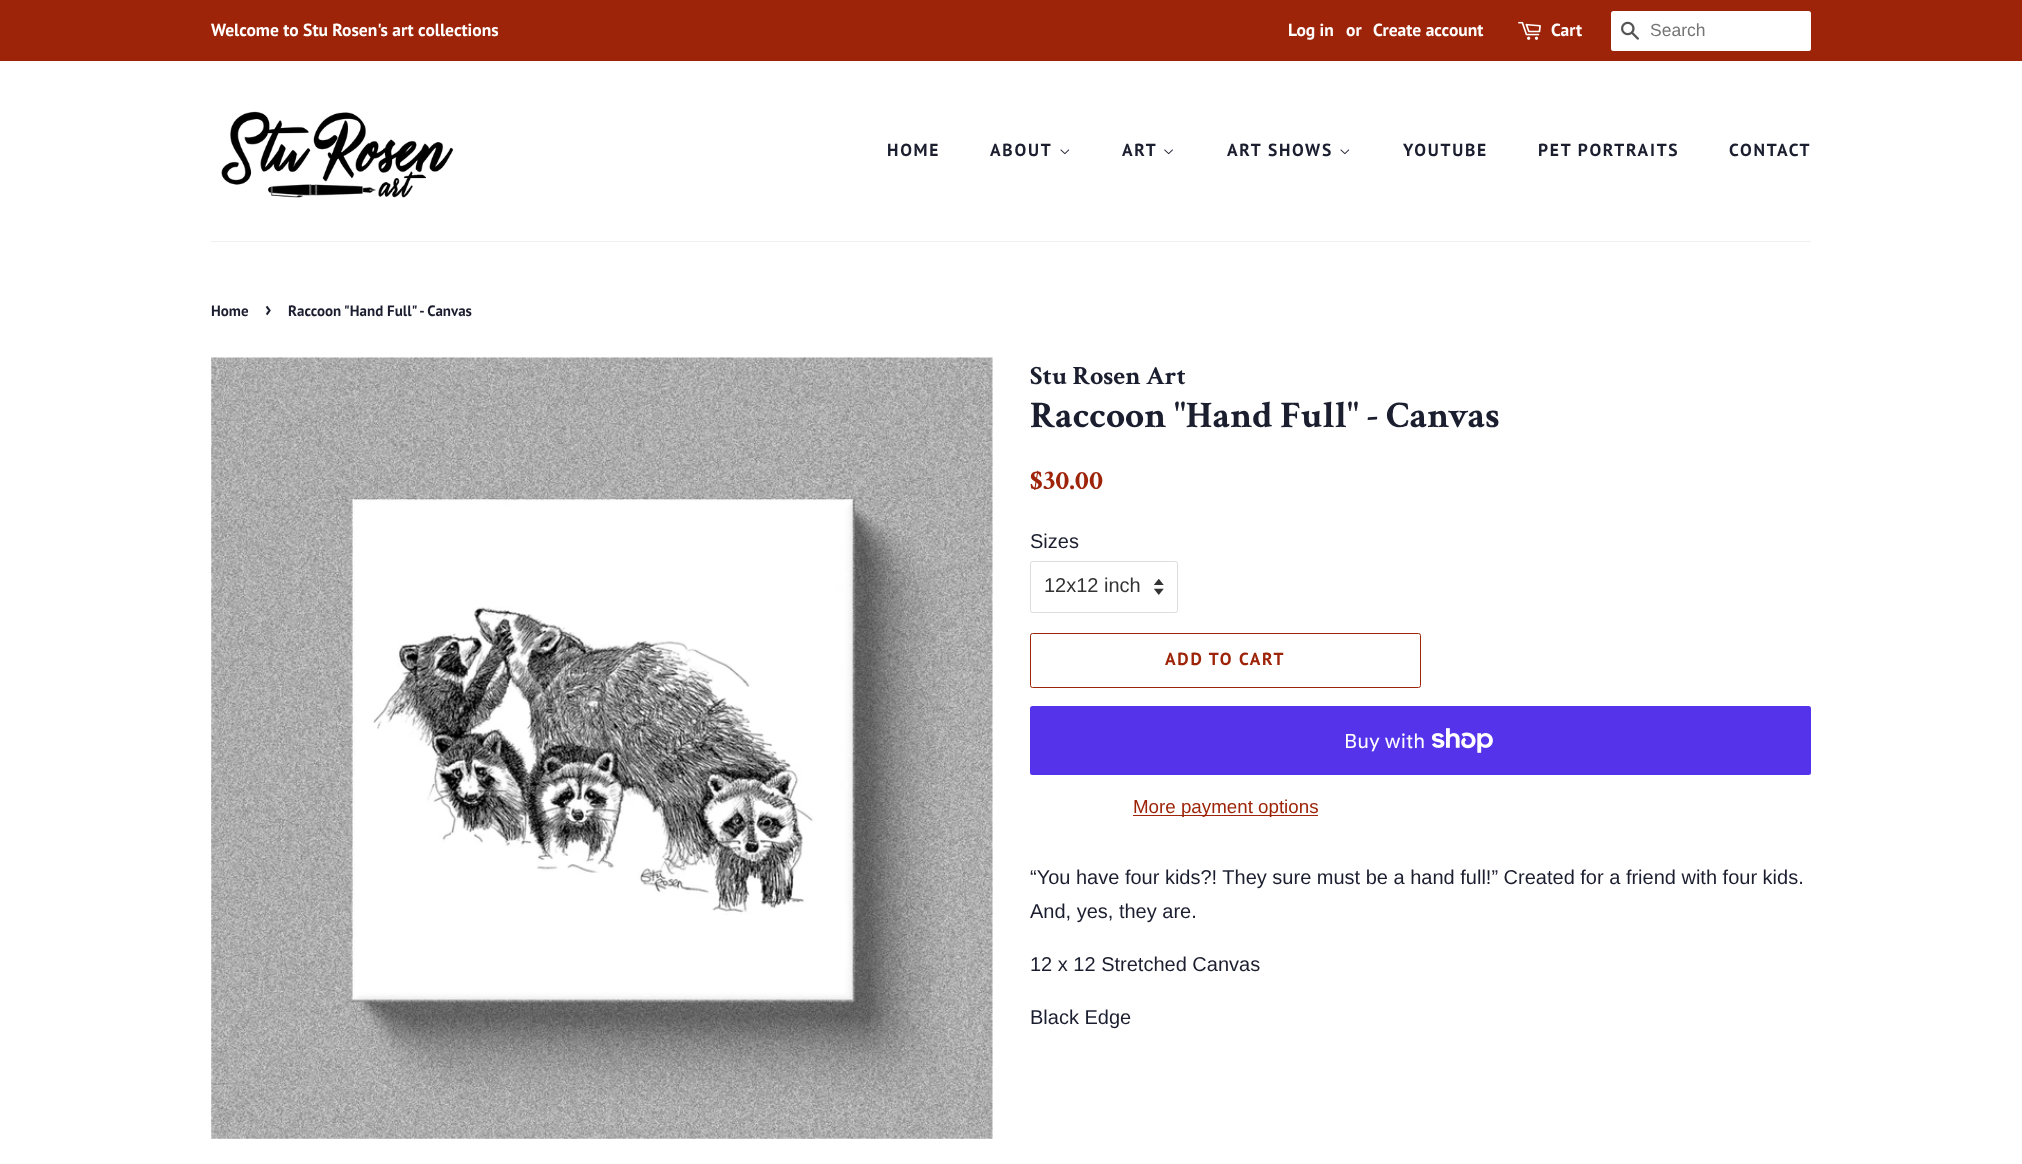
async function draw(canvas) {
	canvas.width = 2022;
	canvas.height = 1164;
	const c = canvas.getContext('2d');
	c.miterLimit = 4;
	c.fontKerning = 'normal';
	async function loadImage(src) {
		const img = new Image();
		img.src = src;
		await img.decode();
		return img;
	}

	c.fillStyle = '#fff';
	c.fillRect(0, 0, 2022, 1164);
	c.fillStyle = '#9d2408';
	c.fillRect(0, 0, 2022, 61);
	c.font = 'bold 17.5px PT Sans';
	c.fillStyle = '#fff';
	for (const [text, x, y] of [
		['Welcome to Stu Rosen\'s art collections', 211, 36],
		['Log in', 1288, 36],
		['or', 1346, 36],
		['Create account', 1373, 36],
	]) {
		c.fillText(text, x, y);
	}
	c.drawImage(await loadImage('img1.png'), 1518, 21, 23, 19);
	c.fillText('Cart', 1551, 36);
	c.beginPath();
	c.roundRect(1611, 11, 200, 40, 2.5);
	c.fill();
	c.drawImage(await loadImage('img2.png'), 1621, 21, 18, 19);
	c.font = '17.5px Liberation Sans';
	c.fillStyle = '#757575';
	c.fillText('Search', 1650, 36);
	c.fillStyle = '#f0f0f0';
	c.fillRect(211, 241, 1600, 1);
	c.drawImage(await loadImage('img3.png'), 221, 111, 233, 87);
	c.letterSpacing = '1.75px';
	c.font = 'bold 17.5px PT Sans';
	c.fillStyle = '#1b1e2f';
	c.fillText('HOME', 887, 156);
	c.fillText('ABOUT', 990, 156);
	c.drawImage(await loadImage('img4.png'), 1060, 149, 10, 6);
	c.fillText('ART', 1122, 156);
	c.drawImage(await loadImage('img5.png'), 1164, 149, 9, 6);
	c.fillText('ART SHOWS', 1227, 156);
	c.drawImage(await loadImage('img4.png'), 1340, 149, 10, 6);
	for (const [text, x, y] of [
		['YOUTUBE', 1403, 156],
		['PET PORTRAITS', 1538, 156],
		['CONTACT', 1729, 156],
	]) {
		c.fillText(text, x, y);
	}
	c.letterSpacing = '0px';
	c.font = 'bold 15px PT Sans';
	c.fillText('Home', 211, 316);
	c.font = 'bold 21px PT Sans';
	c.fillText('›', 265, 316);
	c.font = 'bold 15px PT Sans';
	c.fillText('Raccoon "Hand Full" - Canvas', 288, 316);
	c.drawImage(await loadImage('img6.png'), 211, 357, 782, 782);
	c.font = 'bold 26.25px Crimson Text';
	c.fillText('Stu Rosen Art', 1030, 384);
	c.font = 'bold 37.5px Crimson Text';
	c.fillText('Raccoon "Hand Full" - Canvas', 1030, 427);
	c.font = 'bold 28px Crimson Text';
	c.fillStyle = '#9d2408';
	c.fillText('$30.00', 1030, 489);
	c.font = '20px Liberation Sans';
	c.fillStyle = '#1b1e2f';
	c.fillText('Sizes', 1030, 548);
	c.drawImage(await loadImage('img7.png'), 1154, 579, 10, 16);
	c.beginPath();
	c.roundRect(1030.5, 561.5, 147, 51, 2);
	c.strokeStyle = '#dddde0';
	c.stroke();
	c.fillStyle = '#333';
	c.fillText('12x12 inch', 1044, 592);
	c.beginPath();
	c.roundRect(1030.5, 633.5, 390, 54, 2);
	c.strokeStyle = '#9d2408';
	c.stroke();
	c.letterSpacing = '1.75px';
	c.font = 'bold 17.5px PT Sans';
	c.fillStyle = '#9d2408';
	c.fillText('ADD TO CART', 1165, 665);
	c.fillStyle = '#5433eb';
	c.beginPath();
	c.roundRect(1030, 706, 781, 69, 2.5);
	c.fill();
	c.letterSpacing = '0px';
	c.font = '20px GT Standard';
	c.fillStyle = '#fff';
	c.fillText('Buy with', 1344, 748);
	c.drawImage(await loadImage('img8.png'), 1431, 728, 62, 25);
	c.fillStyle = '#9d2408';
	c.fillRect(1133, 815, 185, 1);
	c.font = '18.75px Liberation Sans';
	c.fillText('More payment options', 1133, 813);
	c.font = '20px Liberation Sans';
	c.fillStyle = '#1b1e2f';
	for (const [text, x, y] of [
		['“You have four kids?! They sure must be a hand full!” Created for a friend with four kids.', 1030, 884],
		['And, yes, they are.', 1030, 918],
		['12 x 12 Stretched Canvas', 1030, 971],
		['Black Edge', 1030, 1024],
	]) {
		c.fillText(text, x, y);
	}
}

draw(document.querySelector('canvas'));
